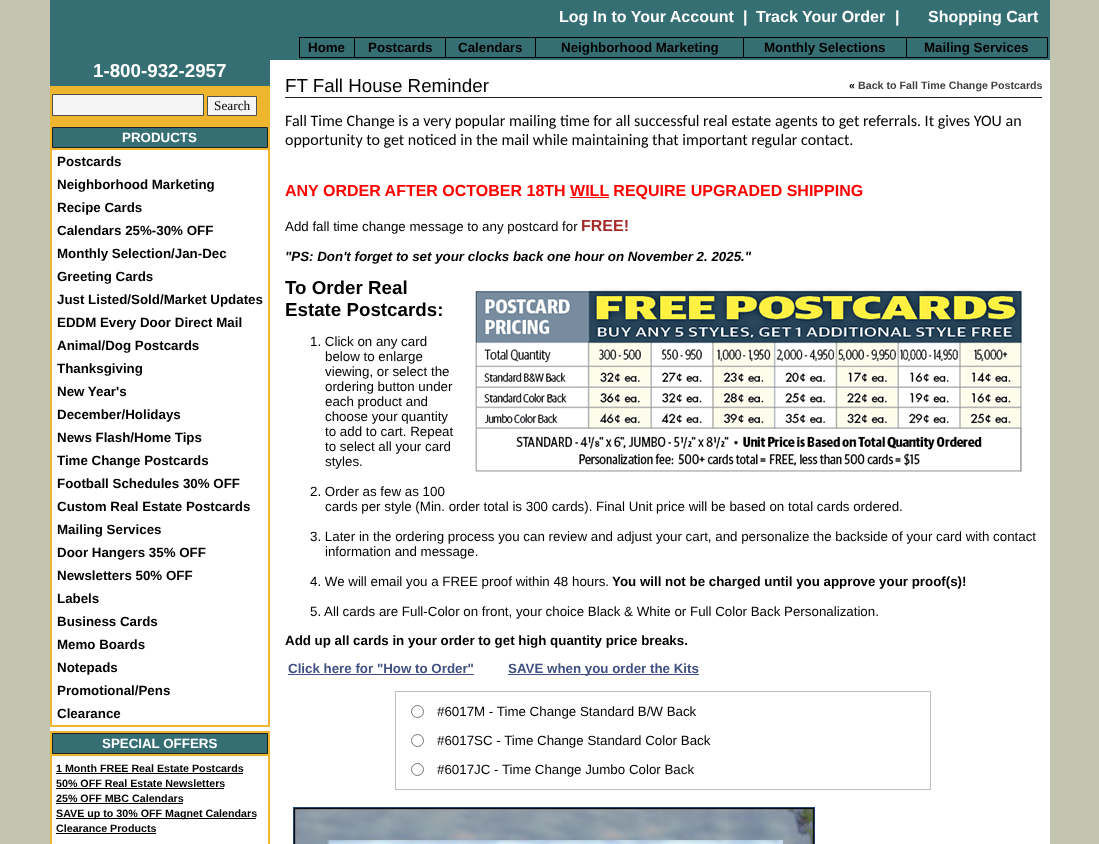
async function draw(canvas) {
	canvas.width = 1099;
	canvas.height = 844;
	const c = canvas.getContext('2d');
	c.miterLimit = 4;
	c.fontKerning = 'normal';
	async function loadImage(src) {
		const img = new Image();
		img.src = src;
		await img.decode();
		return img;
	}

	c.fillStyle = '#c3c5b0';
	c.fillRect(0, 0, 1099, 844);
	c.fillStyle = '#356f73';
	c.fillRect(50, 0, 1000, 60);
	c.font = 'bold 16px Liberation Sans';
	c.fillStyle = '#fff';
	for (const [text, x, y] of [
		['Log In to Your Account', 559, 22],
		['|', 743, 22],
		['Track Your Order', 756, 22],
		['|', 895, 22],
		['Shopping Cart', 928, 22],
	]) {
		c.fillText(text, x, y);
	}
	for (const [x, y, w, h, color] of [
		[906, 37, 142, 1, '#000'],
		[1047, 37, 1, 21, '#000'],
		[906, 57, 142, 1, '#000'],
		[906, 37, 1, 21, '#000'],
		[743, 37, 164, 1, '#000'],
		[743, 57, 164, 1, '#000'],
		[743, 37, 1, 21, '#000'],
		[535, 37, 209, 1, '#000'],
		[535, 57, 209, 1, '#000'],
		[535, 37, 1, 21, '#000'],
		[445, 37, 91, 1, '#000'],
		[445, 57, 91, 1, '#000'],
		[445, 37, 1, 21, '#000'],
		[354, 37, 92, 1, '#000'],
		[354, 57, 92, 1, '#000'],
		[354, 37, 1, 21, '#000'],
		[299, 37, 56, 1, '#000'],
		[299, 57, 56, 1, '#000'],
		[299, 37, 1, 21, '#000'],
	]) {
		c.fillStyle = color;
		c.fillRect(x, y, w, h);
	}
	c.font = 'bold 13.33px Liberation Sans';
	for (const [text, x, y] of [
		['Home', 308, 52],
		['Postcards', 368, 52],
		['Calendars', 458, 52],
		['Neighborhood Marketing', 561, 52],
		['Monthly Selections', 764, 52],
		['Mailing Services', 924, 52],
	]) {
		c.fillText(text, x, y);
	}
	for (const [x, y, w, h, color] of [
		[50, 60, 1000, 784, '#fff'],
		[50, 86, 220, 641, '#eeb62f'],
		[50, 60, 220, 26, '#356f73'],
	]) {
		c.fillStyle = color;
		c.fillRect(x, y, w, h);
	}
	c.font = 'bold 18.75px Liberation Sans';
	c.fillStyle = '#fff';
	c.fillText('1-800-932-2957', 93, 77);
	c.fillStyle = '#f5f5f5';
	c.beginPath();
	c.rect(52.5, 94.5, 151, 21);
	c.fill();
	c.strokeStyle = '#505050';
	c.stroke();
	c.beginPath();
	c.rect(207.5, 96.5, 49, 19);
	c.fill();
	c.stroke();
	c.font = '13.33px Liberation Serif';
	c.fillStyle = '#000';
	c.fillText('Search', 214, 110);
	c.fillStyle = '#356f73';
	c.beginPath();
	c.rect(52.5, 127.5, 215, 20);
	c.fill();
	c.strokeStyle = '#202020';
	c.stroke();
	c.font = 'bold 13.33px Liberation Sans';
	c.fillStyle = '#fff';
	c.fillText('PRODUCTS', 122, 142);
	c.fillRect(52, 150, 216, 575);
	c.fillStyle = '#000';
	for (const [text, x, y] of [
		['Postcards', 57, 166],
		['Neighborhood Marketing', 57, 189],
		['Recipe Cards', 57, 212],
		['Calendars 25%-30% OFF', 57, 235],
		['Monthly Selection/Jan-Dec', 57, 258],
		['Greeting Cards', 57, 281],
		['Just Listed/Sold/Market Updates', 57, 304],
		['EDDM Every Door Direct Mail', 57, 327],
		['Animal/Dog Postcards', 57, 350],
		['Thanksgiving', 57, 373],
		['New Year\'s', 57, 396],
		['December/Holidays', 57, 419],
		['News Flash/Home Tips', 57, 442],
		['Time Change Postcards', 57, 465],
		['Football Schedules 30% OFF', 57, 488],
		['Custom Real Estate Postcards', 57, 511],
		['Mailing Services', 57, 534],
		['Door Hangers 35% OFF', 57, 557],
		['Newsletters 50% OFF', 57, 580],
		['Labels', 57, 603],
		['Business Cards', 57, 626],
		['Memo Boards', 57, 649],
		['Notepads', 57, 672],
		['Promotional/Pens', 57, 695],
		['Clearance', 57, 718],
	]) {
		c.fillText(text, x, y);
	}
	c.fillStyle = '#eeb62f';
	c.fillRect(50, 731, 220, 113);
	c.fillStyle = '#356f73';
	c.beginPath();
	c.rect(52.5, 733.5, 215, 20);
	c.fill();
	c.stroke();
	c.fillStyle = '#fff';
	c.fillText('SPECIAL OFFERS', 102, 748);
	c.fillRect(52, 756, 216, 88);
	c.font = 'bold 10.7px Liberation Sans';
	c.fillStyle = '#000';
	c.fillText('1 Month FREE Real Estate Postcards', 56, 772);
	c.fillRect(56, 773, 187, 1);
	c.fillText('50% OFF Real Estate Newsletters', 56, 787);
	c.fillRect(56, 788, 168, 1);
	c.fillText('25% OFF MBC Calendars', 56, 802);
	c.fillRect(56, 803, 127, 1);
	c.fillRect(56, 818, 200, 1);
	c.fillText('SAVE up to 30% OFF Magnet Calendars', 56, 817);
	c.fillText('Clearance Products', 56, 832);
	c.fillRect(56, 833, 100, 1);
	c.fillStyle = '#202020';
	c.fillRect(285, 97, 757, 1);
	c.font = '18.75px Liberation Sans';
	c.fillStyle = '#000';
	c.fillText('FT Fall House Reminder', 285, 92);
	c.font = 'bold 10.7px Liberation Sans';
	c.fillText('«', 849, 89);
	c.fillStyle = '#404040';
	c.fillText('Back to Fall Time Change Postcards', 858, 89);
	c.font = '16px Carlito';
	c.fillStyle = '#000';
	c.fillText('Fall Time Change is a very popular mailing time for all successful real estate agents to get referrals. It gives YOU an', 285, 126);
	c.fillText('opportunity to get noticed in the mail while maintaining that important regular contact.', 285, 145);
	c.font = 'bold 16px Liberation Sans';
	c.fillStyle = '#f00';
	c.fillText('ANY ORDER AFTER OCTOBER 18TH WILL REQUIRE UPGRADED SHIPPING', 285, 196);
	c.fillRect(570, 197, 39, 1);
	c.font = '13.33px Liberation Sans';
	c.fillStyle = '#000';
	c.fillText('Add fall time change message to any postcard for', 285, 231);
	c.font = 'bold 16px Liberation Sans';
	c.fillStyle = '#a52a2a';
	c.fillText('FREE!', 581, 231);
	c.font = 'italic bold 13.33px Liberation Sans';
	c.fillStyle = '#000';
	c.fillText('"PS: Don\'t forget to set your clocks back one hour on November 2. 2025."', 285, 261);
	c.font = 'bold 18.75px Liberation Sans';
	c.fillText('To Order Real', 285, 294);
	c.fillText('Estate Postcards:', 285, 316);
	c.drawImage(await loadImage('img1.png'), 475, 288, 547, 184);
	c.font = '13.33px Liberation Sans';
	for (const [text, x, y] of [
		['1. Click on any card', 310, 346],
		['below to enlarge', 325, 361],
		['viewing, or select the', 325, 376],
		['ordering button under', 325, 391],
		['each product and', 325, 406],
		['choose your quantity', 325, 421],
		['to add to cart. Repeat', 325, 436],
		['to select all your card', 325, 451],
		['styles.', 325, 466],
		['2. Order as few as 100', 310, 496],
		['cards per style (Min. order total is 300 cards). Final Unit price will be based on total cards ordered.', 325, 511],
		['3. Later in the ordering process you can review and adjust your cart, and personalize the backside of your card with contact', 310, 541],
		['information and message.', 325, 556],
		['4. We will email you a FREE proof within 48 hours.', 310, 586],
	]) {
		c.fillText(text, x, y);
	}
	c.font = 'bold 13.33px Liberation Sans';
	c.fillText('You will not be charged until you approve your proof(s)!', 612, 586);
	c.font = '13.33px Liberation Sans';
	c.fillText('5. All cards are Full-Color on front, your choice Black & White or Full Color Back Personalization.', 310, 616);
	c.font = 'bold 13.33px Liberation Sans';
	c.fillText('Add up all cards in your order to get high quantity price breaks.', 285, 645);
	c.fillStyle = '#405080';
	c.fillText('Click here for "How to Order"', 288, 673);
	c.fillRect(288, 674, 186, 1);
	c.fillRect(508, 674, 191, 1);
	c.fillText('SAVE when you order the Kits', 508, 673);
	for (const [x, y, w, h, color] of [
		[395, 691, 536, 1, '#c0c0c0'],
		[930, 691, 1, 99, '#c0c0c0'],
		[395, 789, 536, 1, '#c0c0c0'],
		[395, 691, 1, 99, '#c0c0c0'],
	]) {
		c.fillStyle = color;
		c.fillRect(x, y, w, h);
	}
	c.beginPath();
	c.arc(417.5, 711.5, 6, 0, 2 * Math.PI);
	c.strokeStyle = '#767676';
	c.stroke();
	c.font = '13.33px Liberation Sans';
	c.fillStyle = '#000';
	c.fillText('#6017M - Time Change Standard B/W Back', 437, 716);
	c.beginPath();
	c.arc(417.5, 740.5, 6, 0, 2 * Math.PI);
	c.stroke();
	c.fillText('#6017SC - Time Change Standard Color Back', 437, 745);
	c.beginPath();
	c.arc(417.5, 769.5, 6, 0, 2 * Math.PI);
	c.stroke();
	c.fillText('#6017JC - Time Change Jumbo Color Back', 437, 774);
	c.strokeStyle = '#234373';
	c.strokeRect(293.5, 807.5, 521, 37);
	c.drawImage(await loadImage('img2.png'), 294, 808, 520, 36);
}

draw(document.querySelector('canvas'));
